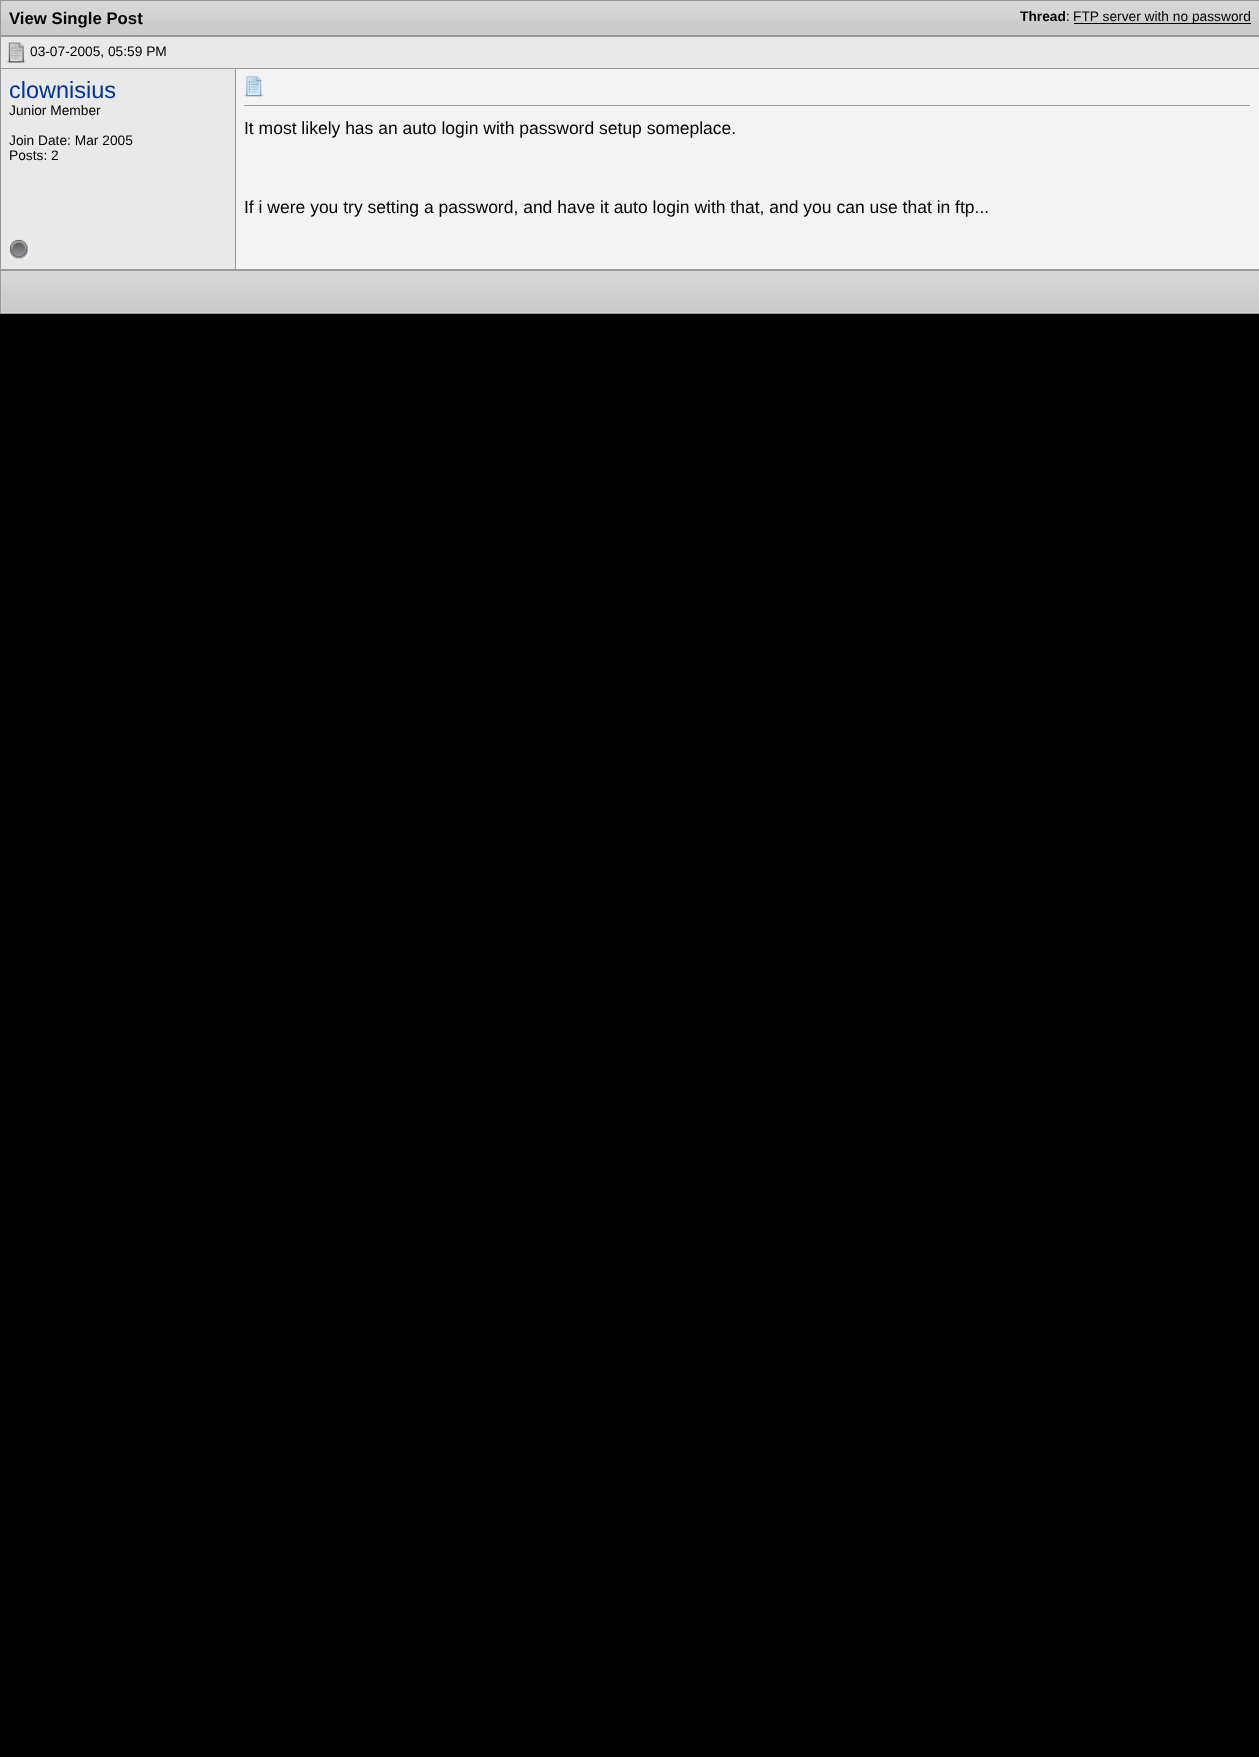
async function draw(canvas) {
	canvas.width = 1259;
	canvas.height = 1757;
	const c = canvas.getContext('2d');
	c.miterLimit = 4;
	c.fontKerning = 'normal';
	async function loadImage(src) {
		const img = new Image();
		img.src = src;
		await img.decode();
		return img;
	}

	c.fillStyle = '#000';
	c.fillRect(0, 0, 1259, 1757);
	c.fillStyle = '#999';
	c.fillRect(0, 0, 1259, 36);
	c.fillStyle = '#ccc';
	c.fillRect(1, 1, 1258, 34);
	c.drawImage(await loadImage('img1.png'), 1, 1, 1258, 20);
	c.font = 'bold 16.75px Liberation Sans';
	c.fillStyle = '#000';
	c.fillText('View Single Post', 9, 24);
	c.font = 'bold 13.75px Liberation Sans';
	c.fillText('Thread', 1020, 21);
	c.font = '13.75px Liberation Sans';
	c.fillText(':', 1066, 21);
	c.fillRect(1074, 23, 177, 1);
	c.fillText('FTP server with no password', 1073, 21);
	for (const [x, y, w, h, color] of [
		[1, 37, 1258, 31, '#e9e9e9'],
		[0, 36, 1259, 1, '#999'],
		[0, 68, 1259, 1, '#999'],
		[0, 36, 1, 192, '#999'],
	]) {
		c.fillStyle = color;
		c.fillRect(x, y, w, h);
	}
	c.drawImage(await loadImage('img2.png'), 6, 42, 20, 21);
	c.fillStyle = '#000';
	c.fillText('03-07-2005, 05:59 PM', 30, 56);
	c.fillStyle = '#e9e9e9';
	c.fillRect(1, 69, 234, 200);
	c.fillStyle = '#999';
	c.fillRect(235, 69, 1, 201);
	c.font = '23.5px Liberation Sans';
	c.fillStyle = '#039';
	c.fillText('clownisius', 9, 98);
	c.font = '13.75px Liberation Sans';
	c.fillStyle = '#000';
	for (const [text, x, y] of [
		['Junior Member', 9, 115],
		['Join Date: Mar 2005', 9, 145],
		['Posts: 2', 9, 160],
	]) {
		c.fillText(text, x, y);
	}
	c.fillStyle = '#f3f3f3';
	c.fillRect(236, 69, 1023, 200);
	c.drawImage(await loadImage('img3.png'), 244, 76, 20, 21);
	c.fillStyle = '#9f9f9f';
	c.fillRect(244, 105, 1007, 1);
	c.fillStyle = '#eee';
	c.fillRect(1250, 105, 1, 1);
	c.font = '17.5px Liberation Sans';
	c.fillStyle = '#000';
	c.fillText('It most likely has an auto login with password setup someplace.', 244, 134);
	c.fillText('If i were you try setting a password, and have it auto login with that, and you can use that in ftp...', 244, 213);
	c.fillStyle = '#999';
	c.fillRect(0, 269, 1259, 45);
	c.fillRect(0, 228, 1, 42);
	c.drawImage(await loadImage('img4.png'), 8, 239, 21, 20);
	c.fillStyle = '#e1e1e2';
	c.fillRect(1, 271, 1258, 42);
	c.drawImage(await loadImage('img5.png'), 1, 271, 1258, 42);
}

draw(document.querySelector('canvas'));
